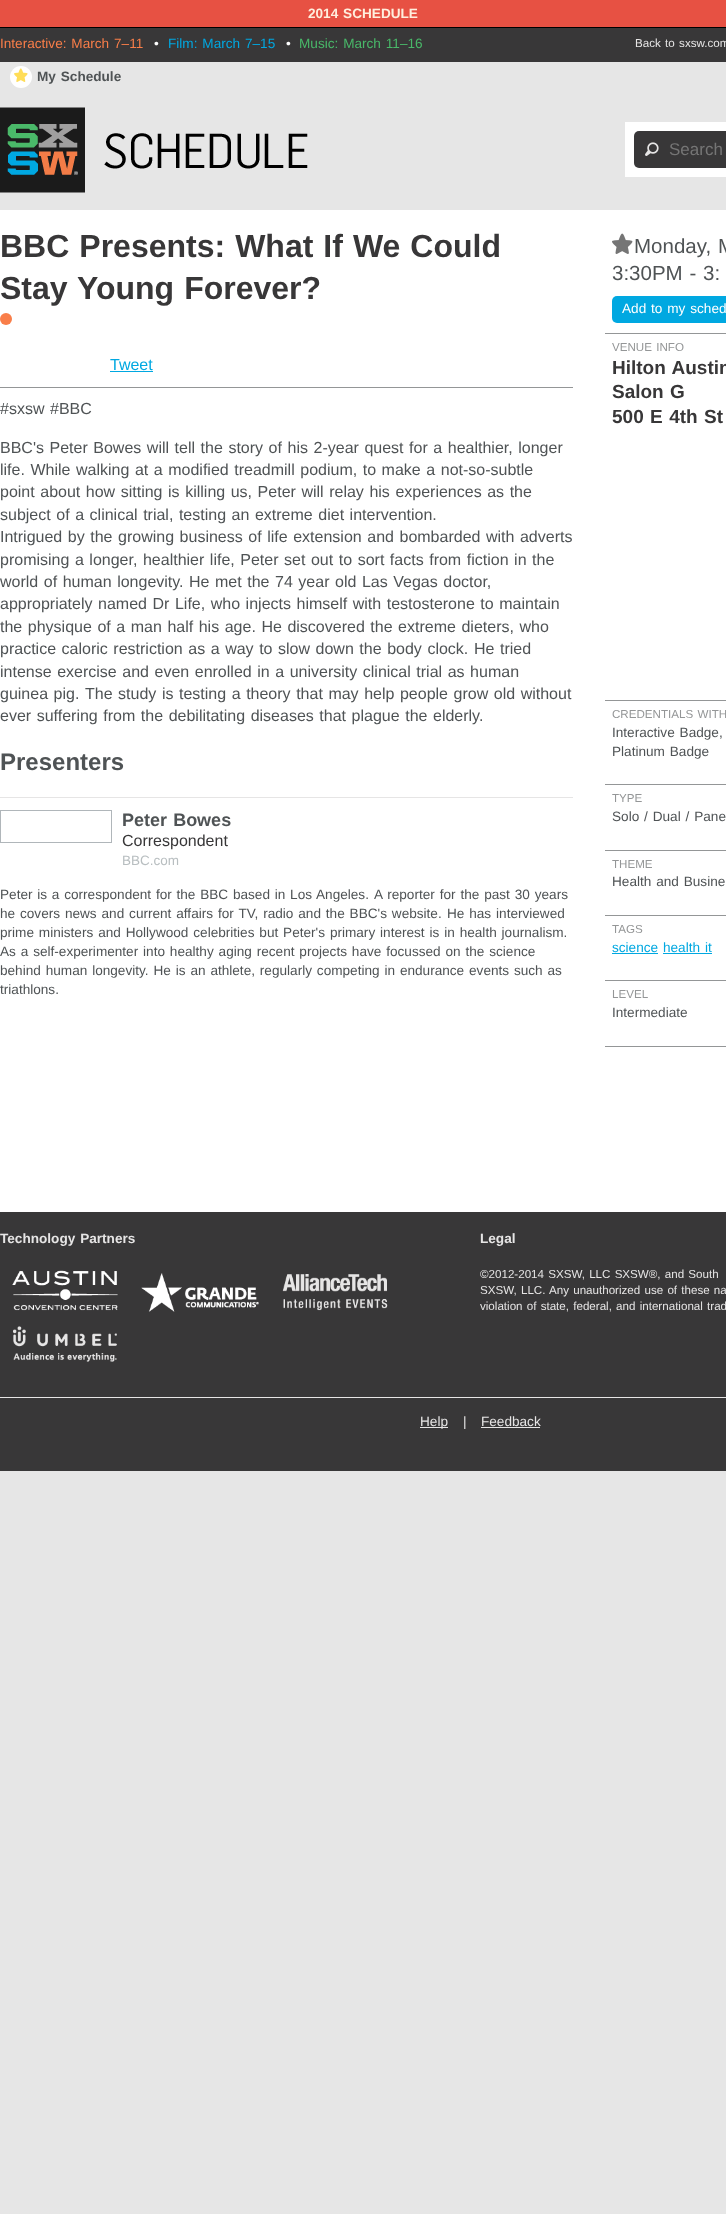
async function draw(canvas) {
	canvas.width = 726;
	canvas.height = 2214;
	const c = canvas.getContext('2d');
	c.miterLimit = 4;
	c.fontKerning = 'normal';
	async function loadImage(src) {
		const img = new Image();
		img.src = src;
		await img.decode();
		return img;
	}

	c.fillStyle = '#e6e6e6';
	c.fillRect(0, 0, 726, 2214);
	c.fillStyle = '#e75143';
	c.fillRect(0, 0, 726, 27);
	c.fillStyle = '#000';
	c.fillRect(0, 27, 726, 1);
	c.wordSpacing = '1.1px';
	c.font = 'bold 13.6px Liberation Sans';
	c.fillStyle = '#fed';
	c.fillText('2014 SCHEDULE', 308, 18);
	c.fillStyle = '#383738';
	c.fillRect(0, 28, 726, 34);
	c.font = '13.6px Liberation Sans';
	c.fillStyle = '#f97e49';
	c.fillText('Interactive: March 7–11', 0, 48);
	c.wordSpacing = '0px';
	c.fillStyle = '#fff';
	c.fillText('•', 154, 48);
	c.wordSpacing = '1.1px';
	c.fillStyle = '#00a8e1';
	c.fillText('Film: March 7–15', 168, 48);
	c.wordSpacing = '0px';
	c.fillStyle = '#fff';
	c.fillText('•', 286, 48);
	c.wordSpacing = '1.1px';
	c.fillStyle = '#49b869';
	c.fillText('Music: March 11–16', 299, 48);
	c.font = '11.6px Liberation Sans';
	c.fillStyle = '#e6e5e5';
	c.fillText('Back to sxsw.com', 635, 47);
	c.fillStyle = '#fff';
	c.beginPath();
	c.arc(21, 77, 11, 0, 2 * Math.PI);
	c.fill();
	c.drawImage(await loadImage('img1.png'), 14, 68, 14, 14);
	c.font = 'bold 13.6px Liberation Sans';
	c.fillStyle = '#4f5355';
	c.fillText('My Schedule', 37, 81);
	c.drawImage(await loadImage('img2.png'), 0, 107, 308, 86);
	c.fillStyle = '#fff';
	c.fillRect(625, 122, 101, 55);
	c.fillStyle = '#383738';
	c.beginPath();
	c.roundRect(634, 131, 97, 37, 5);
	c.fill();
	c.drawImage(await loadImage('img3.png'), 645, 142, 14, 14);
	c.wordSpacing = '0px';
	c.font = '17px Liberation Sans';
	c.fillStyle = '#757575';
	c.fillText('Search', 669, 155);
	c.fillStyle = '#fff';
	c.fillRect(0, 210, 726, 1002);
	c.wordSpacing = '1.1px';
	c.font = 'bold 32px Liberation Sans';
	c.fillStyle = '#383738';
	c.fillText('BBC Presents: What If We Could', 0, 257);
	c.fillText('Stay Young Forever?', 0, 299);
	c.fillStyle = '#f97e49';
	c.beginPath();
	c.arc(6, 319, 6, 0, 2 * Math.PI);
	c.fill();
	c.fillStyle = '#949697';
	c.fillRect(0, 387, 573, 1);
	c.wordSpacing = '0px';
	c.font = '16px Liberation Sans';
	c.fillStyle = '#00a8e1';
	c.fillText('Tweet', 110, 370);
	c.fillRect(110, 371, 43, 1);
	c.wordSpacing = '1.1px';
	c.fillStyle = '#4f5355';
	for (const [text, x, y] of [
		['#sxsw #BBC', 0, 414],
		['BBC\'s Peter Bowes will tell the story of his 2-year quest for a healthier, longer', 0, 453],
		['life. While walking at a modified treadmill podium, to make a not-so-subtle', 0, 475],
		['point about how sitting is killing us, Peter will relay his experiences as the', 0, 497],
		['subject of a clinical trial, testing an extreme diet intervention.', 0, 520],
		['Intrigued by the growing business of life extension and bombarded with adverts', 0, 542],
		['promising a longer, healthier life, Peter set out to sort facts from fiction in the', 0, 565],
		['world of human longevity.', 0, 587],
		['He met the 74 year old Las Vegas doctor,', 189, 587],
		['appropriately named Dr Life, who injects himself with testosterone to maintain', 0, 609],
		['the physique of a man half his age. He discovered the extreme dieters, who', 0, 632],
		['practice caloric restriction as a way to slow down the body clock.', 0, 654],
		['He tried', 474, 654],
		['intense exercise and even enrolled in a university clinical trial as human', 0, 677],
		['guinea pig.', 0, 699],
		['The study is testing a theory that may help people grow old without', 85, 699],
		['ever suffering from the debilitating diseases that plague the elderly.', 0, 721],
	]) {
		c.fillText(text, x, y);
	}
	c.wordSpacing = '0px';
	c.font = 'bold 24px Liberation Sans';
	c.fillText('Presenters', 0, 770);
	c.fillStyle = '#e6e5e5';
	c.fillRect(0, 797, 573, 1);
	c.strokeStyle = '#b0b6ba';
	c.strokeRect(0.5, 810.5, 111, 32);
	c.wordSpacing = '1.1px';
	c.font = 'bold 18px Liberation Sans';
	c.fillStyle = '#4f5355';
	c.fillText('Peter Bowes', 122, 826);
	c.wordSpacing = '0px';
	c.font = '16px Liberation Sans';
	c.fillStyle = '#383738';
	c.fillText('Correspondent', 122, 846);
	c.font = '13.5px Liberation Sans';
	c.fillStyle = '#b8bec0';
	c.fillText('BBC.com', 122, 865);
	c.wordSpacing = '1px';
	c.font = '13.6px Liberation Sans';
	c.fillStyle = '#4f5355';
	c.fillText('Peter is a correspondent for the BBC based in Los Angeles.', 0, 899);
	c.wordSpacing = '1.1px';
	for (const [text, x, y] of [
		['A reporter for the past 30 years', 374, 899],
		['he covers news and current affairs for TV, radio and the BBC\'s website.', 0, 918],
		['He has interviewed', 447, 918],
		['prime ministers and Hollywood celebrities but Peter\'s primary interest is in health journalism.', 0, 937],
		['As a self-experimenter into healthy aging recent projects have focussed on the science', 0, 956],
		['behind human longevity. He is an athlete, regularly competing in endurance events such as', 0, 975],
	]) {
		c.fillText(text, x, y);
	}
	c.wordSpacing = '0px';
	c.fillText('triathlons.', 0, 994);
	c.fillStyle = '#949697';
	c.fillRect(605, 333, 121, 1);
	c.drawImage(await loadImage('img4.png'), 612, 233, 21, 21);
	c.wordSpacing = '1.1px';
	c.font = '20.5px Liberation Sans';
	c.fillStyle = '#4f5355';
	c.fillText('Monday, M', 634, 253);
	c.fillText('3:30PM - 3:', 612, 280);
	c.fillStyle = '#00a8e1';
	c.beginPath();
	c.roundRect(612, 296, 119, 27, 5);
	c.fill();
	c.font = '13.6px Liberation Sans';
	c.fillStyle = '#fff';
	c.fillText('Add to my sched', 622, 313);
	c.fillStyle = '#949697';
	c.fillRect(605, 700, 121, 1);
	c.font = '11.6px Liberation Sans';
	c.fillText('VENUE INFO', 612, 351);
	c.font = 'bold 19px Liberation Sans';
	c.fillStyle = '#383738';
	for (const [text, x, y] of [
		['Hilton Austin', 612, 374],
		['Salon G', 612, 398],
		['500 E 4th St', 612, 423],
	]) {
		c.fillText(text, x, y);
	}
	c.fillStyle = '#949697';
	c.fillRect(605, 784, 121, 1);
	c.font = '11.6px Liberation Sans';
	c.fillText('CREDENTIALS WITH', 612, 718);
	c.font = '13.6px Liberation Sans';
	c.fillStyle = '#4f5355';
	c.fillText('Interactive Badge,', 612, 737);
	c.fillText('Platinum Badge', 612, 756);
	c.fillStyle = '#949697';
	c.fillRect(605, 850, 121, 1);
	c.wordSpacing = '0px';
	c.font = '11.6px Liberation Sans';
	c.fillText('TYPE', 612, 802);
	c.wordSpacing = '1.1px';
	c.font = '13.6px Liberation Sans';
	c.fillStyle = '#4f5355';
	c.fillText('Solo / Dual / Pane', 612, 821);
	c.fillStyle = '#949697';
	c.fillRect(605, 915, 121, 1);
	c.wordSpacing = '0px';
	c.font = '11.6px Liberation Sans';
	c.fillText('THEME', 612, 868);
	c.wordSpacing = '1.1px';
	c.font = '13.6px Liberation Sans';
	c.fillStyle = '#4f5355';
	c.fillText('Health and Busine', 612, 886);
	c.fillStyle = '#949697';
	c.fillRect(605, 980, 121, 1);
	c.wordSpacing = '0px';
	c.font = '11.6px Liberation Sans';
	c.fillText('TAGS', 612, 933);
	c.font = '13.6px Liberation Sans';
	c.fillStyle = '#00a8e1';
	c.fillText('science', 612, 952);
	c.fillRect(612, 953, 46, 1);
	c.wordSpacing = '1.1px';
	c.fillText('health it', 663, 952);
	c.fillRect(663, 953, 49, 1);
	c.fillStyle = '#949697';
	c.fillRect(605, 1046, 121, 1);
	c.wordSpacing = '0px';
	c.font = '11.6px Liberation Sans';
	c.fillText('LEVEL', 612, 998);
	c.font = '13.6px Liberation Sans';
	c.fillStyle = '#4f5355';
	c.fillText('Intermediate', 612, 1017);
	c.fillStyle = '#383738';
	c.fillRect(0, 1212, 726, 259);
	c.wordSpacing = '1.1px';
	c.font = 'bold 13.6px Liberation Sans';
	c.fillStyle = '#e6e5e5';
	c.fillText('Technology Partners', 0, 1243);
	c.drawImage(await loadImage('img5.png'), 12, 1270, 106, 41);
	c.drawImage(await loadImage('img6.png'), 141, 1273, 118, 39);
	c.drawImage(await loadImage('img7.png'), 282, 1274, 106, 37);
	c.drawImage(await loadImage('img8.png'), 13, 1326, 104, 36);
	c.wordSpacing = '0px';
	c.fillText('Legal', 480, 1243);
	c.wordSpacing = '1px';
	c.font = '11.6px Liberation Sans';
	for (const [text, x, y] of [
		['©2012-2014 SXSW, LLC SXSW®, and South', 480, 1278],
		['SXSW, LLC. Any unauthorized use of these na', 480, 1294],
		['violation of state, federal, and international trad', 480, 1310],
	]) {
		c.fillText(text, x, y);
	}
	c.fillRect(0, 1397, 726, 1);
	c.fillRect(420, 1427, 28, 1);
	c.wordSpacing = '0px';
	c.font = '13.6px Liberation Sans';
	for (const [text, x, y] of [
		['Help', 420, 1426],
		['|', 463, 1426],
		['Feedback', 481, 1426],
	]) {
		c.fillText(text, x, y);
	}
	c.fillRect(481, 1427, 59, 1);
}

draw(document.querySelector('canvas'));
